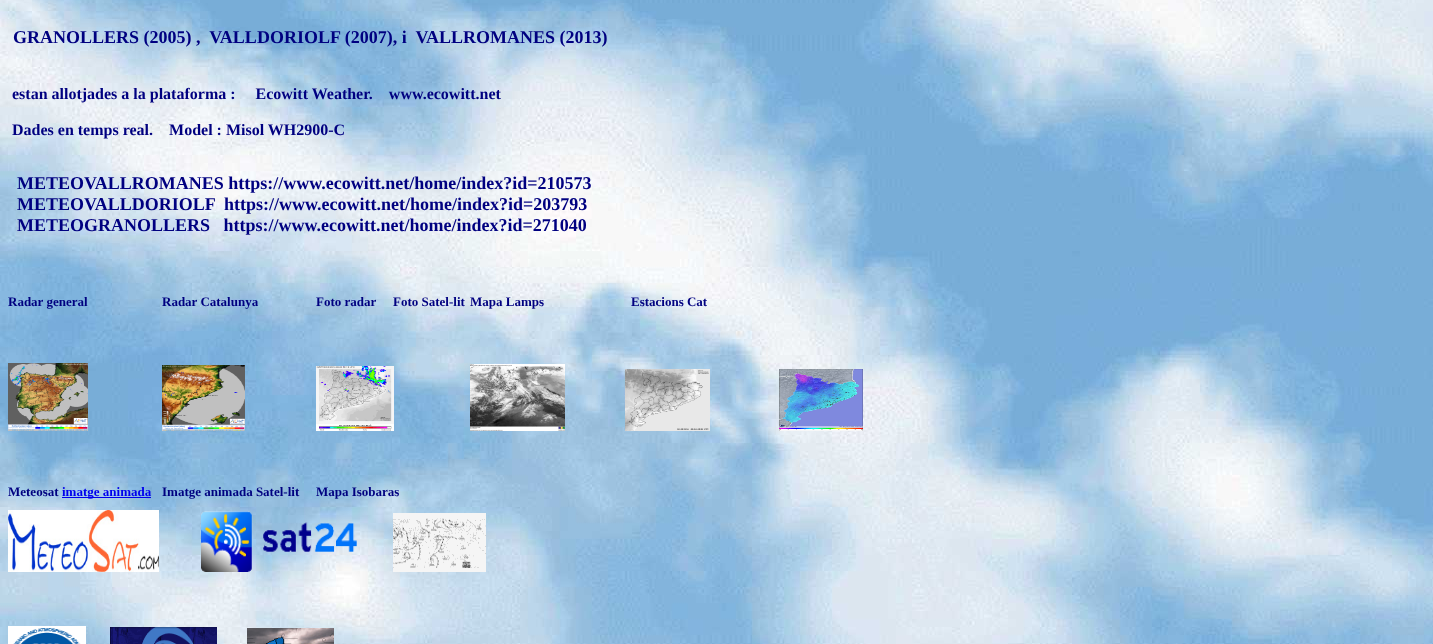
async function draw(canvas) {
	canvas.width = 1433;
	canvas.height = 644;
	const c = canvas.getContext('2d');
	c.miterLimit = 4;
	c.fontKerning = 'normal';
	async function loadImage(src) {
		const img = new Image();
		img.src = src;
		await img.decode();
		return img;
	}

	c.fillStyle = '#fff';
	c.fillRect(0, 0, 1433, 644);
	c.drawImage(await loadImage('img1.png'), 0, 0, 1433, 644);
	c.font = 'bold 18px Liberation Serif';
	c.fillStyle = '#000080';
	c.fillText('GRANOLLERS (2005) ,  VALLDORIOLF (2007), i  VALLROMANES (2013)', 13, 43);
	c.font = 'bold 16px Liberation Serif';
	c.fillText('estan allotjades a la plataforma :     Ecowitt Weather.    www.ecowitt.net', 12, 99);
	c.fillText('Dades en temps real.    Model : Misol WH2900-C', 12, 135);
	c.font = 'bold 18px Liberation Serif';
	for (const [text, x, y] of [
		['METEOVALLROMANES https://www.ecowitt.net/home/index?id=210573', 17, 189],
		['METEOVALLDORIOLF  https://www.ecowitt.net/home/index?id=203793', 17, 210],
		['METEOGRANOLLERS   https://www.ecowitt.net/home/index?id=271040', 17, 231],
	]) {
		c.fillText(text, x, y);
	}
	c.font = 'bold 13px Liberation Serif';
	for (const [text, x, y] of [
		['Radar general', 8, 306],
		['Radar Catalunya', 162, 306],
		['Foto radar', 316, 306],
		['Foto Satel-lit', 393, 306],
		['Mapa Lamps', 470, 306],
		['Estacions Cat', 631, 306],
	]) {
		c.fillText(text, x, y);
	}
	c.drawImage(await loadImage('img2.png'), 8, 363, 80, 68);
	c.drawImage(await loadImage('img3.png'), 162, 365, 83, 66);
	c.drawImage(await loadImage('img4.png'), 316, 366, 78, 65);
	c.drawImage(await loadImage('img5.png'), 470, 364, 95, 67);
	c.drawImage(await loadImage('img6.png'), 625, 369, 85, 62);
	c.drawImage(await loadImage('img7.png'), 779, 369, 84, 62);
	c.fillText('Meteosat', 8, 496);
	c.fillStyle = '#00e';
	c.fillRect(62, 497, 89, 1);
	c.fillText('imatge animada', 62, 496);
	c.fillStyle = '#000080';
	c.fillText('Imatge animada Satel-lit', 162, 496);
	c.fillText('Mapa Isobaras', 316, 496);
	c.drawImage(await loadImage('img8.png'), 8, 510, 151, 62);
	c.drawImage(await loadImage('img9.png'), 201, 511, 156, 61);
	c.drawImage(await loadImage('img10.png'), 393, 513, 93, 59);
	c.drawImage(await loadImage('img11.png'), 8, 626, 78, 18);
	c.drawImage(await loadImage('img12.png'), 110, 627, 107, 17);
	c.drawImage(await loadImage('img13.png'), 247, 628, 87, 16);
}

draw(document.querySelector('canvas'));
